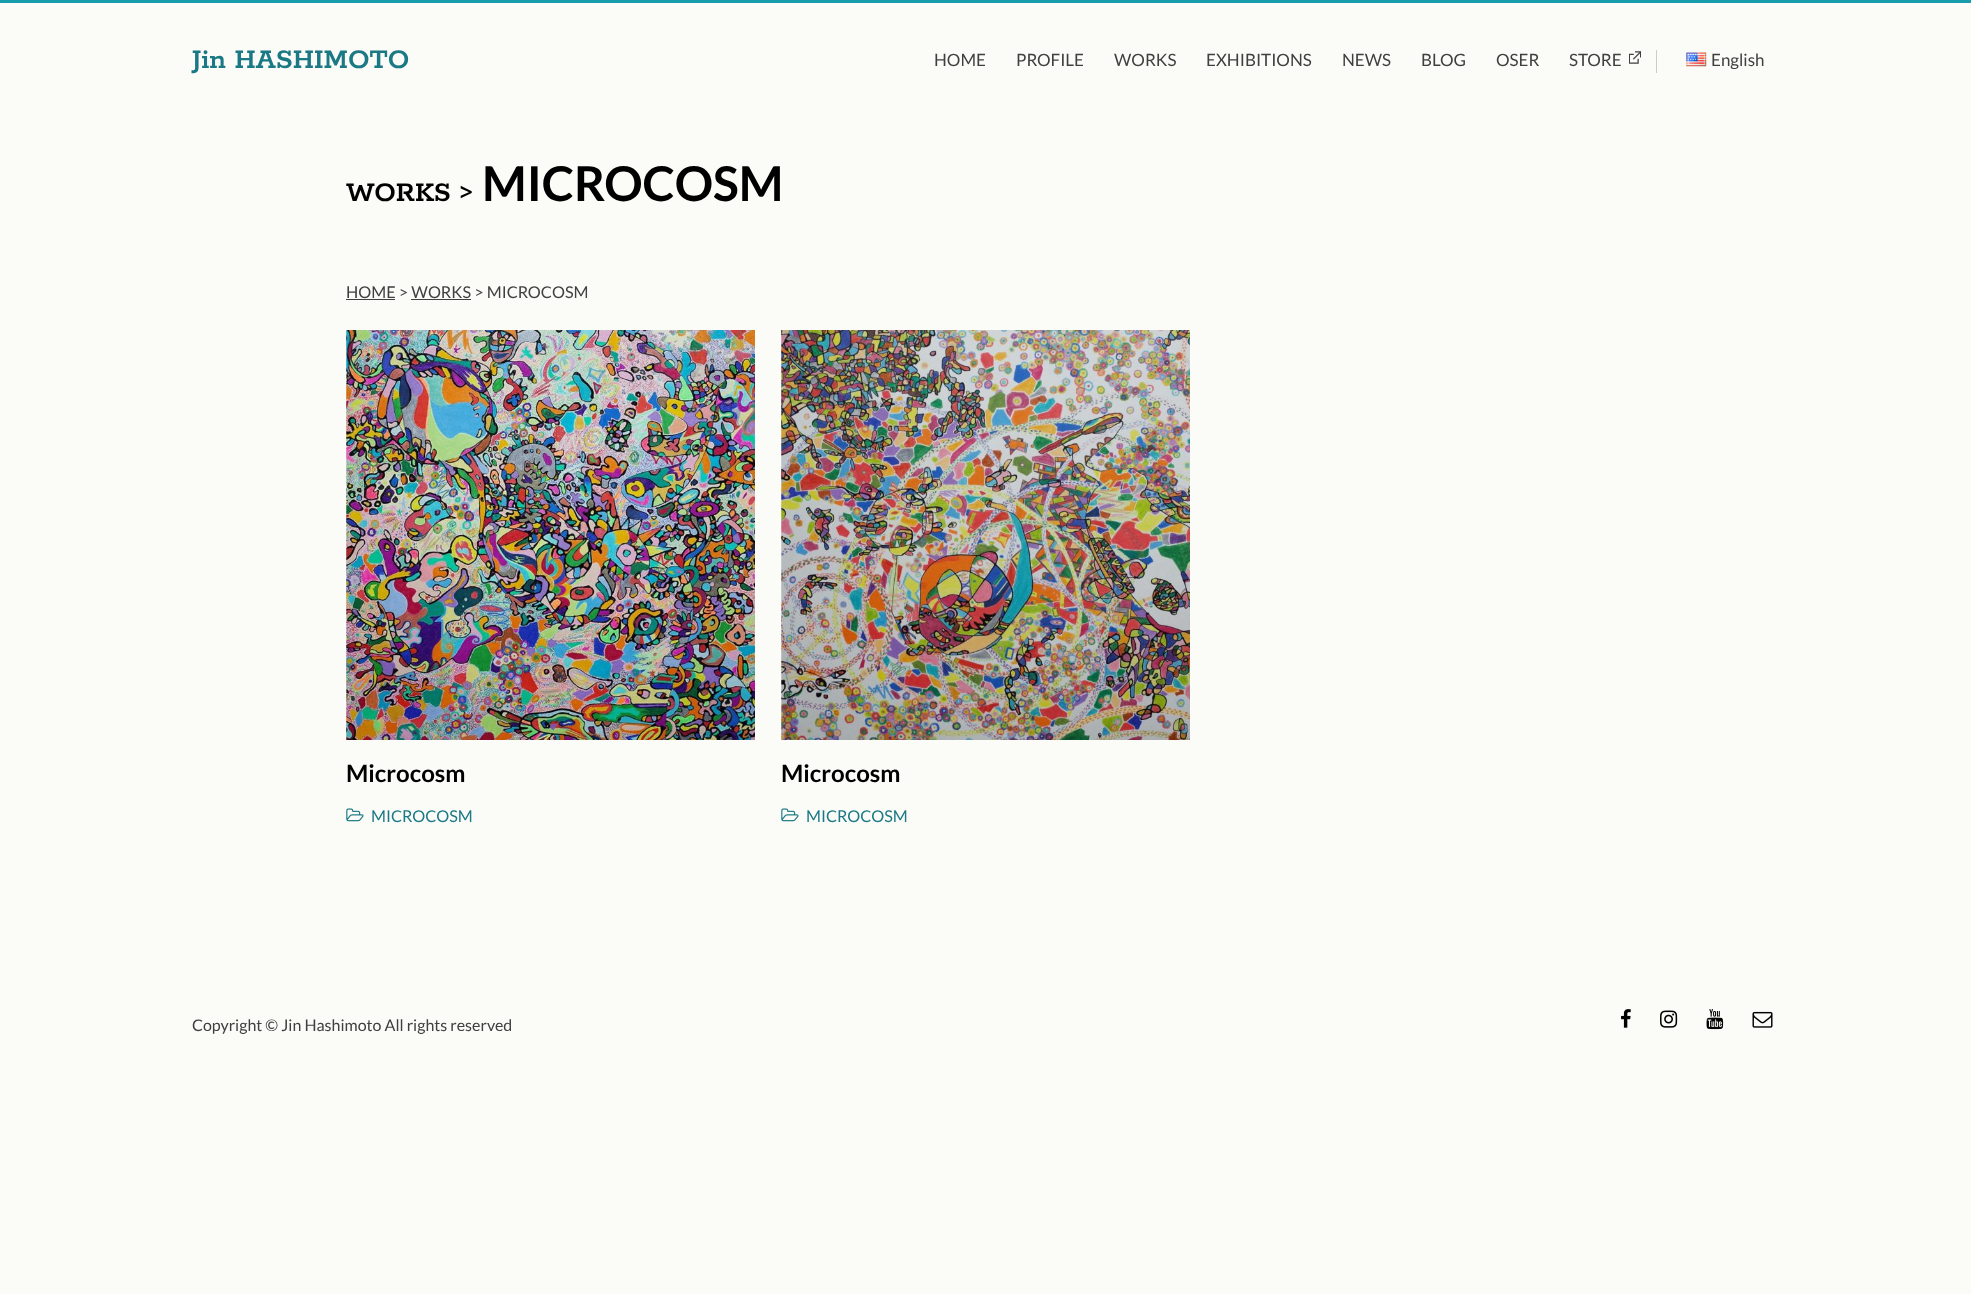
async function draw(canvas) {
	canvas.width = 1971;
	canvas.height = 1294;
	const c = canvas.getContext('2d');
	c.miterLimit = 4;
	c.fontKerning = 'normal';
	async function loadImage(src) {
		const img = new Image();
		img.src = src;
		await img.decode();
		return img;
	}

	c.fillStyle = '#fbfbf7';
	c.fillRect(0, 0, 1971, 1294);
	c.fillStyle = '#179dad';
	c.fillRect(0, 0, 1971, 3);
	c.font = '600 30px Rokkitt';
	c.fillStyle = '#1a7984';
	c.fillText('Jin HASHIMOTO', 192, 68);
	c.font = '17px Lato';
	c.fillStyle = '#404040';
	for (const [text, x, y] of [
		['HOME', 934, 66],
		['PROFILE', 1016, 66],
		['WORKS', 1114, 66],
		['EXHIBITIONS', 1206, 66],
		['NEWS', 1342, 66],
		['BLOG', 1421, 66],
		['OSER', 1496, 66],
	]) {
		c.fillText(text, x, y);
	}
	c.drawImage(await loadImage('img1.png'), 1629, 51, 12, 13);
	c.fillText('STORE', 1569, 66);
	c.fillStyle = '#ccc';
	c.fillRect(1656, 50, 1, 23);
	c.drawImage(await loadImage('img2.png'), 1686, 52, 21, 15);
	c.fillStyle = '#404040';
	c.fillText('English', 1711, 66);
	c.font = '600 30px Rokkitt';
	c.fillStyle = '#000';
	c.fillText('WORKS >', 346, 201);
	c.font = 'bold 48px Lato';
	c.fillText('MICROCOSM', 482, 201);
	c.font = '16.25px Lato';
	c.fillStyle = '#404040';
	c.fillText('HOME > WORKS > MICROCOSM', 346, 298);
	c.fillRect(346, 299, 49, 1);
	c.fillRect(411, 299, 60, 1);
	c.drawImage(await loadImage('img3.png'), 346, 330, 409, 410);
	c.font = 'bold 24px Lato';
	c.fillStyle = '#000';
	c.fillText('Microcosm', 346, 782);
	c.drawImage(await loadImage('img4.png'), 346, 808, 18, 14);
	c.font = '16.25px Lato';
	c.fillStyle = '#1a7984';
	c.fillText('MICROCOSM', 371, 822);
	c.drawImage(await loadImage('img5.png'), 781, 330, 409, 410);
	c.font = 'bold 24px Lato';
	c.fillStyle = '#000';
	c.fillText('Microcosm', 781, 782);
	c.drawImage(await loadImage('img4.png'), 781, 808, 18, 14);
	c.font = '16.25px Lato';
	c.fillStyle = '#1a7984';
	c.fillText('MICROCOSM', 806, 822);
	c.font = '16px Lato';
	c.fillStyle = '#404040';
	c.fillText('Copyright © Jin Hashimoto All rights reserved', 192, 1031);
	c.drawImage(await loadImage('img6.png'), 1621, 1009, 10, 19);
	c.drawImage(await loadImage('img7.png'), 1660, 1010, 18, 18);
	c.drawImage(await loadImage('img8.png'), 1706, 1009, 18, 21);
	c.drawImage(await loadImage('img9.png'), 1752, 1011, 21, 17);
}

draw(document.querySelector('canvas'));
